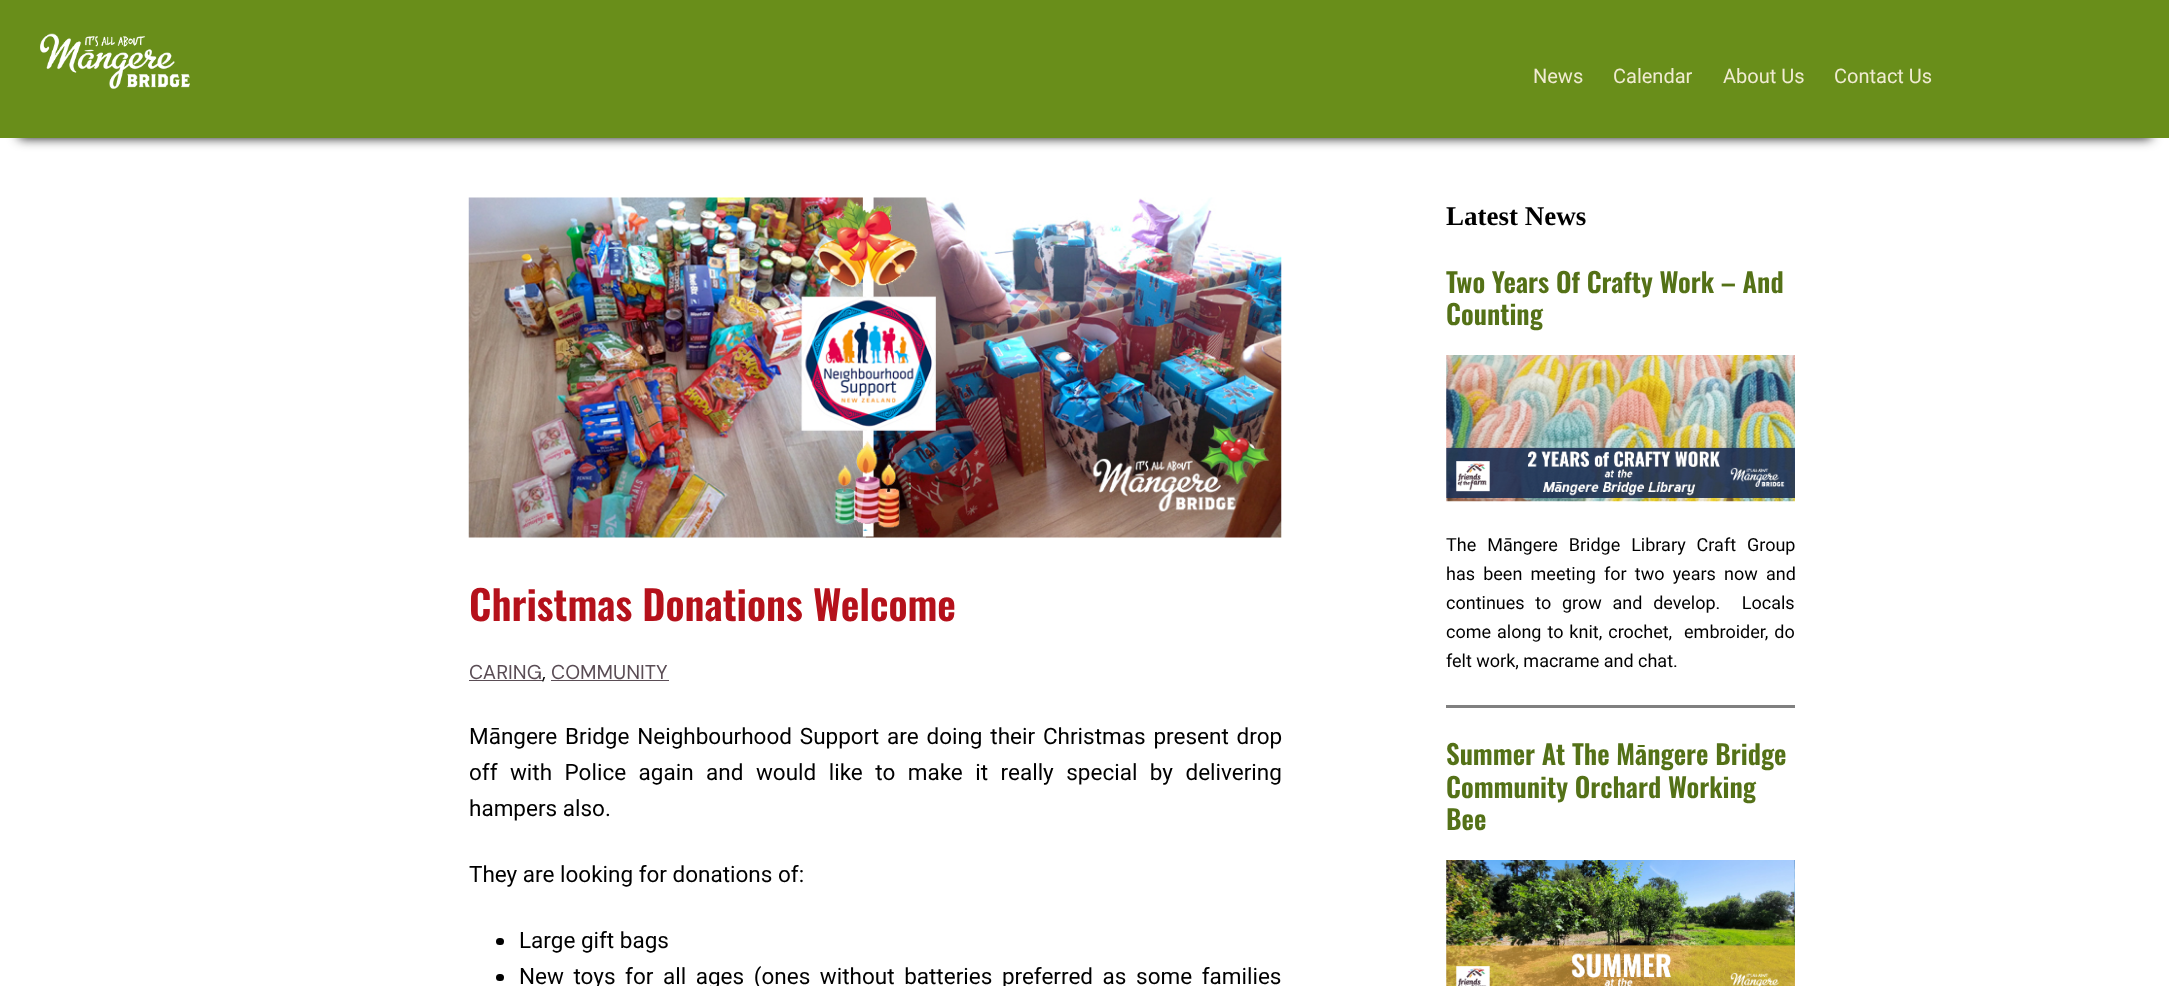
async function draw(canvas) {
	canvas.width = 2169;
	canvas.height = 986;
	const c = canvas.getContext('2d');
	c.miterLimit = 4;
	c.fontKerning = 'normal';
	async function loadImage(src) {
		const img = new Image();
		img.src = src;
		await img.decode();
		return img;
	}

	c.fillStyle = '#fff';
	c.fillRect(0, 0, 2169, 986);
	c.fillStyle = '#111';
	c.filter = 'blur(6px)';
	c.beginPath();
	c.rect(19, 38, 2132, 100);
	c.fill();
	c.filter = 'none';
	c.fillStyle = '#698e1a';
	c.fillRect(0, 0, 2169, 138);
	c.drawImage(await loadImage('img1.png'), 40, 33, 150, 56);
	c.font = '20px Roboto';
	c.fillStyle = '#f0ebd2';
	for (const [text, x, y] of [
		['News', 1533, 83],
		['Calendar', 1613, 83],
		['About Us', 1723, 83],
		['Contact Us', 1834, 83],
	]) {
		c.fillText(text, x, y);
	}
	c.drawImage(await loadImage('img2.png'), 468, 197, 814, 341);
	c.font = '600 40.5px Oswald';
	c.fillStyle = '#b5111b';
	c.fillText('Christmas Donations Welcome', 469, 621);
	c.font = '20px DM Sans';
	c.fillStyle = '#5a4d55';
	c.fillText('CARING', 469, 679);
	c.fillRect(469, 680, 74, 1);
	c.fillStyle = '#000';
	c.fillText(',', 542, 679);
	c.fillStyle = '#5a4d55';
	c.fillText('COMMUNITY', 551, 679);
	c.fillRect(551, 680, 118, 1);
	c.wordSpacing = '2.25px';
	c.font = '22.5px Roboto';
	c.fillStyle = '#000';
	c.fillText('Māngere Bridge Neighbourhood Support are doing their Christmas present drop', 469, 744);
	c.wordSpacing = '6.9px';
	c.fillText('off with Police again and would like to make it really special by delivering', 469, 780);
	c.wordSpacing = '0px';
	c.fillText('hampers also.', 469, 816);
	c.fillText('They are looking for donations of:', 469, 882);
	c.beginPath();
	c.roundRect(496, 938, 8, 7, 3.5);
	c.fill();
	c.fillText('Large gift bags', 519, 948);
	c.beginPath();
	c.roundRect(496, 974, 8, 7, 3.5);
	c.fill();
	c.wordSpacing = '4px';
	c.fillText('New toys for all ages (ones without batteries preferred as some families', 519, 984);
	c.wordSpacing = '0px';
	c.font = 'bold 27px Liberation Serif';
	c.fillText('Latest News', 1446, 225);
	c.font = '600 27px Oswald';
	c.fillStyle = '#547117';
	c.fillText('Two Years Of Crafty Work – And', 1446, 293);
	c.fillText('Counting', 1446, 325);
	c.drawImage(await loadImage('img3.png'), 1446, 355, 349, 147);
	c.wordSpacing = '6.5px';
	c.font = '18px Roboto';
	c.fillStyle = '#000';
	c.fillText('The Māngere Bridge Library Craft Group', 1446, 551);
	c.wordSpacing = '3.75px';
	c.fillText('has been meeting for two years now and', 1446, 580);
	c.wordSpacing = '6.25px';
	c.fillText('continues to grow and develop.  Locals', 1446, 609);
	c.wordSpacing = '1.5px';
	c.fillText('come along to knit, crochet,  embroider, do', 1446, 638);
	c.wordSpacing = '0px';
	c.fillText('felt work, macrame and chat.', 1446, 667);
	c.fillStyle = '#808080';
	c.fillRect(1446, 705, 349, 3);
	c.font = '600 27px Oswald';
	c.fillStyle = '#547117';
	for (const [text, x, y] of [
		['Summer At The Māngere Bridge', 1446, 765],
		['Community Orchard Working', 1446, 798],
		['Bee', 1446, 830],
	]) {
		c.fillText(text, x, y);
	}
	c.drawImage(await loadImage('img4.png'), 1446, 860, 349, 126);
}

draw(document.querySelector('canvas'));
